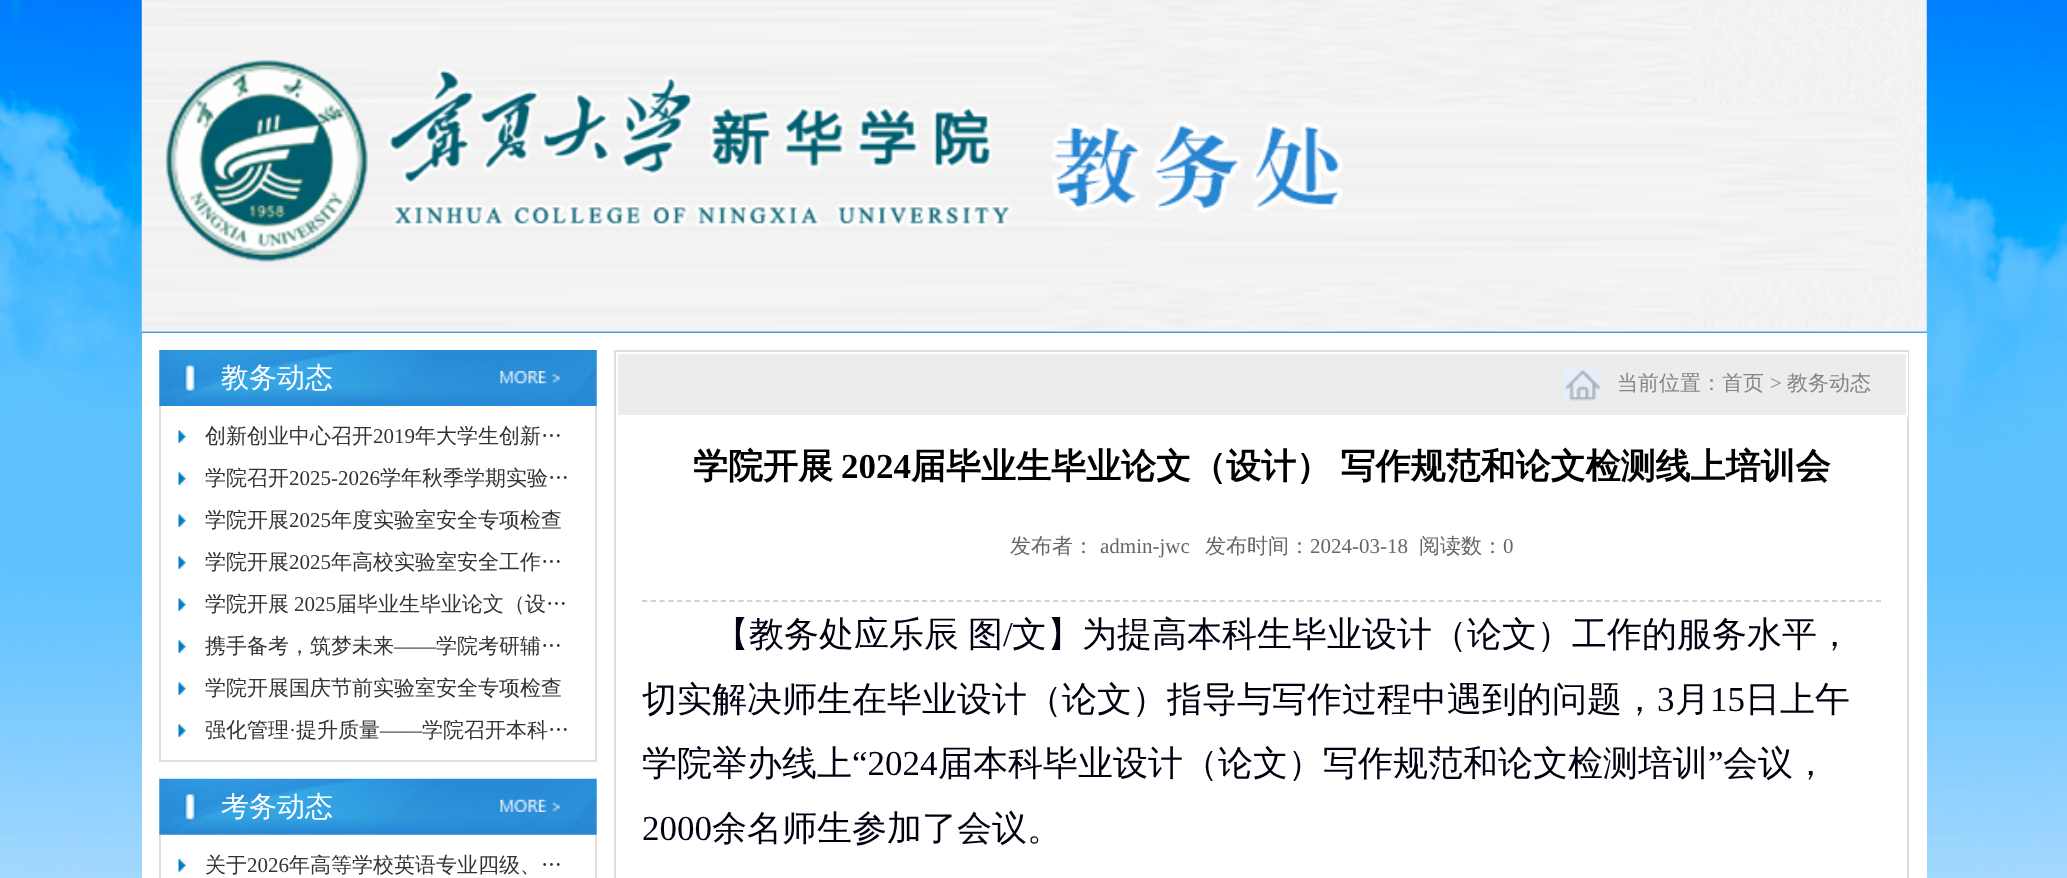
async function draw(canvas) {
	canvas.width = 2067;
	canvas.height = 878;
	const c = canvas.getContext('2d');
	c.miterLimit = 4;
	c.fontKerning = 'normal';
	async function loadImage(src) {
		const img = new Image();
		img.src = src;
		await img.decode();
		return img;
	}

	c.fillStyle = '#fff';
	c.fillRect(0, 0, 2067, 878);
	c.drawImage(await loadImage('img1.png'), 0, 0, 2067, 878);
	c.drawImage(await loadImage('img2.png'), 141, 0, 1786, 333);
	c.fillRect(142, 333, 1785, 545);
	c.drawImage(await loadImage('img3.png'), 159, 350, 438, 56);
	c.font = '500 28px WenQuanYi Zen Hei';
	c.fillText('教务动态', 221, 387);
	c.drawImage(await loadImage('img4.png'), 500, 371, 60, 13);
	for (const [x, y, w, h, color] of [
		[595, 406, 2, 355, '#dfdfdf'],
		[159, 760, 438, 2, '#dfdfdf'],
		[159, 406, 2, 355, '#dfdfdf'],
	]) {
		c.fillStyle = color;
		c.fillRect(x, y, w, h);
	}
	c.drawImage(await loadImage('img5.png'), 178, 430, 8, 13);
	c.font = '500 21px WenQuanYi Zen Hei';
	c.fillStyle = '#333';
	c.fillText('创新创业中心召开', 205, 443);
	c.font = '21px Liberation Serif';
	c.fillText('2019', 373, 443);
	c.font = '500 21px WenQuanYi Zen Hei';
	c.fillText('年大学生创新…', 415, 443);
	c.drawImage(await loadImage('img5.png'), 178, 472, 8, 13);
	c.fillText('学院召开', 205, 485);
	c.font = '21px Liberation Serif';
	c.fillText('2025-2026', 289, 485);
	c.font = '500 21px WenQuanYi Zen Hei';
	c.fillText('学年秋季学期实验…', 380, 485);
	c.drawImage(await loadImage('img5.png'), 178, 514, 8, 13);
	c.fillText('学院开展', 205, 527);
	c.font = '21px Liberation Serif';
	c.fillText('2025', 289, 527);
	c.font = '500 21px WenQuanYi Zen Hei';
	c.fillText('年度实验室安全专项检查', 331, 527);
	c.drawImage(await loadImage('img5.png'), 178, 556, 8, 13);
	c.fillText('学院开展', 205, 569);
	c.font = '21px Liberation Serif';
	c.fillText('2025', 289, 569);
	c.font = '500 21px WenQuanYi Zen Hei';
	c.fillText('年高校实验室安全工作…', 331, 569);
	c.drawImage(await loadImage('img5.png'), 178, 598, 8, 13);
	c.fillText('学院开展', 205, 611);
	c.font = '21px Liberation Serif';
	c.fillText('2025', 294, 611);
	c.font = '500 21px WenQuanYi Zen Hei';
	c.fillText('届毕业生毕业论文（设…', 336, 611);
	c.drawImage(await loadImage('img5.png'), 178, 640, 8, 13);
	c.fillText('携手备考，筑梦未来', 205, 653);
	c.font = '21px Liberation Serif';
	c.fillText('——', 394, 653);
	c.wordSpacing = '-1px';
	c.font = '500 21px WenQuanYi Zen Hei';
	c.fillText('学院考研辅…', 436, 653);
	c.drawImage(await loadImage('img5.png'), 178, 682, 8, 13);
	c.wordSpacing = '0px';
	c.fillText('学院开展国庆节前实验室安全专项检查', 205, 695);
	c.drawImage(await loadImage('img5.png'), 178, 724, 8, 13);
	c.fillText('强化管理', 205, 737);
	c.font = '21px Liberation Serif';
	c.fillText('·', 289, 737);
	c.font = '500 21px WenQuanYi Zen Hei';
	c.fillText('提升质量', 296, 737);
	c.font = '21px Liberation Serif';
	c.fillText('——', 380, 737);
	c.font = '500 21px WenQuanYi Zen Hei';
	c.fillText('学院召开本科…', 422, 737);
	c.drawImage(await loadImage('img6.png'), 159, 778, 438, 57);
	c.font = '500 28px WenQuanYi Zen Hei';
	c.fillStyle = '#fff';
	c.fillText('考务动态', 221, 816);
	c.drawImage(await loadImage('img7.png'), 500, 799, 60, 13);
	c.fillStyle = '#dfdfdf';
	c.fillRect(595, 835, 2, 43);
	c.fillRect(159, 835, 2, 43);
	c.drawImage(await loadImage('img8.png'), 178, 859, 8, 13);
	c.font = '500 21px WenQuanYi Zen Hei';
	c.fillStyle = '#333';
	c.fillText('关于', 205, 872);
	c.font = '21px Liberation Serif';
	c.fillText('2026', 247, 872);
	c.font = '500 21px WenQuanYi Zen Hei';
	c.fillText('年高等学校英语专业四级、…', 289, 872);
	c.strokeStyle = '#ddd';
	c.lineWidth = 2;
	c.strokeRect(615, 351, 1293, 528);
	c.fillStyle = '#ececec';
	c.beginPath();
	c.rect(617, 353, 1290, 63);
	c.fill();
	c.strokeStyle = '#fff';
	c.stroke();
	c.drawImage(await loadImage('img9.png'), 1564, 369, 38, 32);
	c.fillStyle = '#858484';
	c.fillText('当前位置：首页', 1617, 390);
	c.font = '21px Liberation Serif';
	c.fillText('>', 1770, 390);
	c.font = '500 21px WenQuanYi Zen Hei';
	c.fillText('教务动态', 1787, 390);
	c.beginPath();
	c.moveTo(642, 601);
	c.lineTo(1881, 601);
	c.strokeStyle = '#d3d3d3';
	c.lineWidth = 1.8;
	c.setLineDash([5.25, 3.5]);
	c.stroke();
	c.font = 'bold 35px WenQuanYi Zen Hei';
	c.fillStyle = '#000';
	c.fillText('学院开展', 693, 478);
	c.font = 'bold 35px Liberation Serif';
	c.fillText('2024', 841, 478);
	c.wordSpacing = '-1px';
	c.font = 'bold 35px WenQuanYi Zen Hei';
	c.fillText('届毕业生毕业论文（设计） 写作规范和论文检测线上培训会', 911, 478);
	c.wordSpacing = '0px';
	c.font = '500 21px WenQuanYi Zen Hei';
	c.fillStyle = '#666';
	c.fillText('发布者：', 1010, 553);
	c.font = '21px Liberation Serif';
	c.fillText('admin-jwc', 1100, 553);
	c.font = '500 21px WenQuanYi Zen Hei';
	c.fillText('发布时间：', 1205, 553);
	c.font = '21px Liberation Serif';
	c.fillText('2024-03-18', 1310, 553);
	c.font = '500 21px WenQuanYi Zen Hei';
	c.fillText('阅读数：', 1419, 553);
	c.font = '21px Liberation Serif';
	c.fillText('0', 1503, 553);
	c.font = '500 35px WenQuanYi Zen Hei';
	c.fillStyle = '#001';
	c.fillText('【教务处应乐辰', 714, 646);
	c.fillText('图', 968, 646);
	c.font = '35px Liberation Serif';
	c.fillText('/', 1003, 646);
	c.font = '500 35px WenQuanYi Zen Hei';
	c.fillText('文】为提高本科生毕业设计（论文）工作的服务水平，', 1012, 646);
	c.fillText('切实解决师生在毕业设计（论文）指导与写作过程中遇到的问题，', 642, 711);
	c.font = '35px Liberation Serif';
	c.fillText('3', 1657, 711);
	c.font = '500 35px WenQuanYi Zen Hei';
	c.fillText('月', 1675, 711);
	c.font = '35px Liberation Serif';
	c.fillText('15', 1710, 711);
	c.font = '500 35px WenQuanYi Zen Hei';
	c.fillText('日上午', 1745, 711);
	c.fillText('学院举办线上', 642, 775);
	c.font = '35px Liberation Serif';
	c.fillText('“2024', 852, 775);
	c.font = '500 35px WenQuanYi Zen Hei';
	c.fillText('届本科毕业设计（论文）写作规范和论文检测培训', 938, 775);
	c.font = '35px Liberation Serif';
	c.fillText('”', 1708, 775);
	c.font = '500 35px WenQuanYi Zen Hei';
	c.fillText('会议，', 1723, 775);
	c.font = '35px Liberation Serif';
	c.fillText('2000', 642, 840);
	c.font = '500 35px WenQuanYi Zen Hei';
	c.fillText('余名师生参加了会议。', 712, 840);
}

draw(document.querySelector('canvas'));
